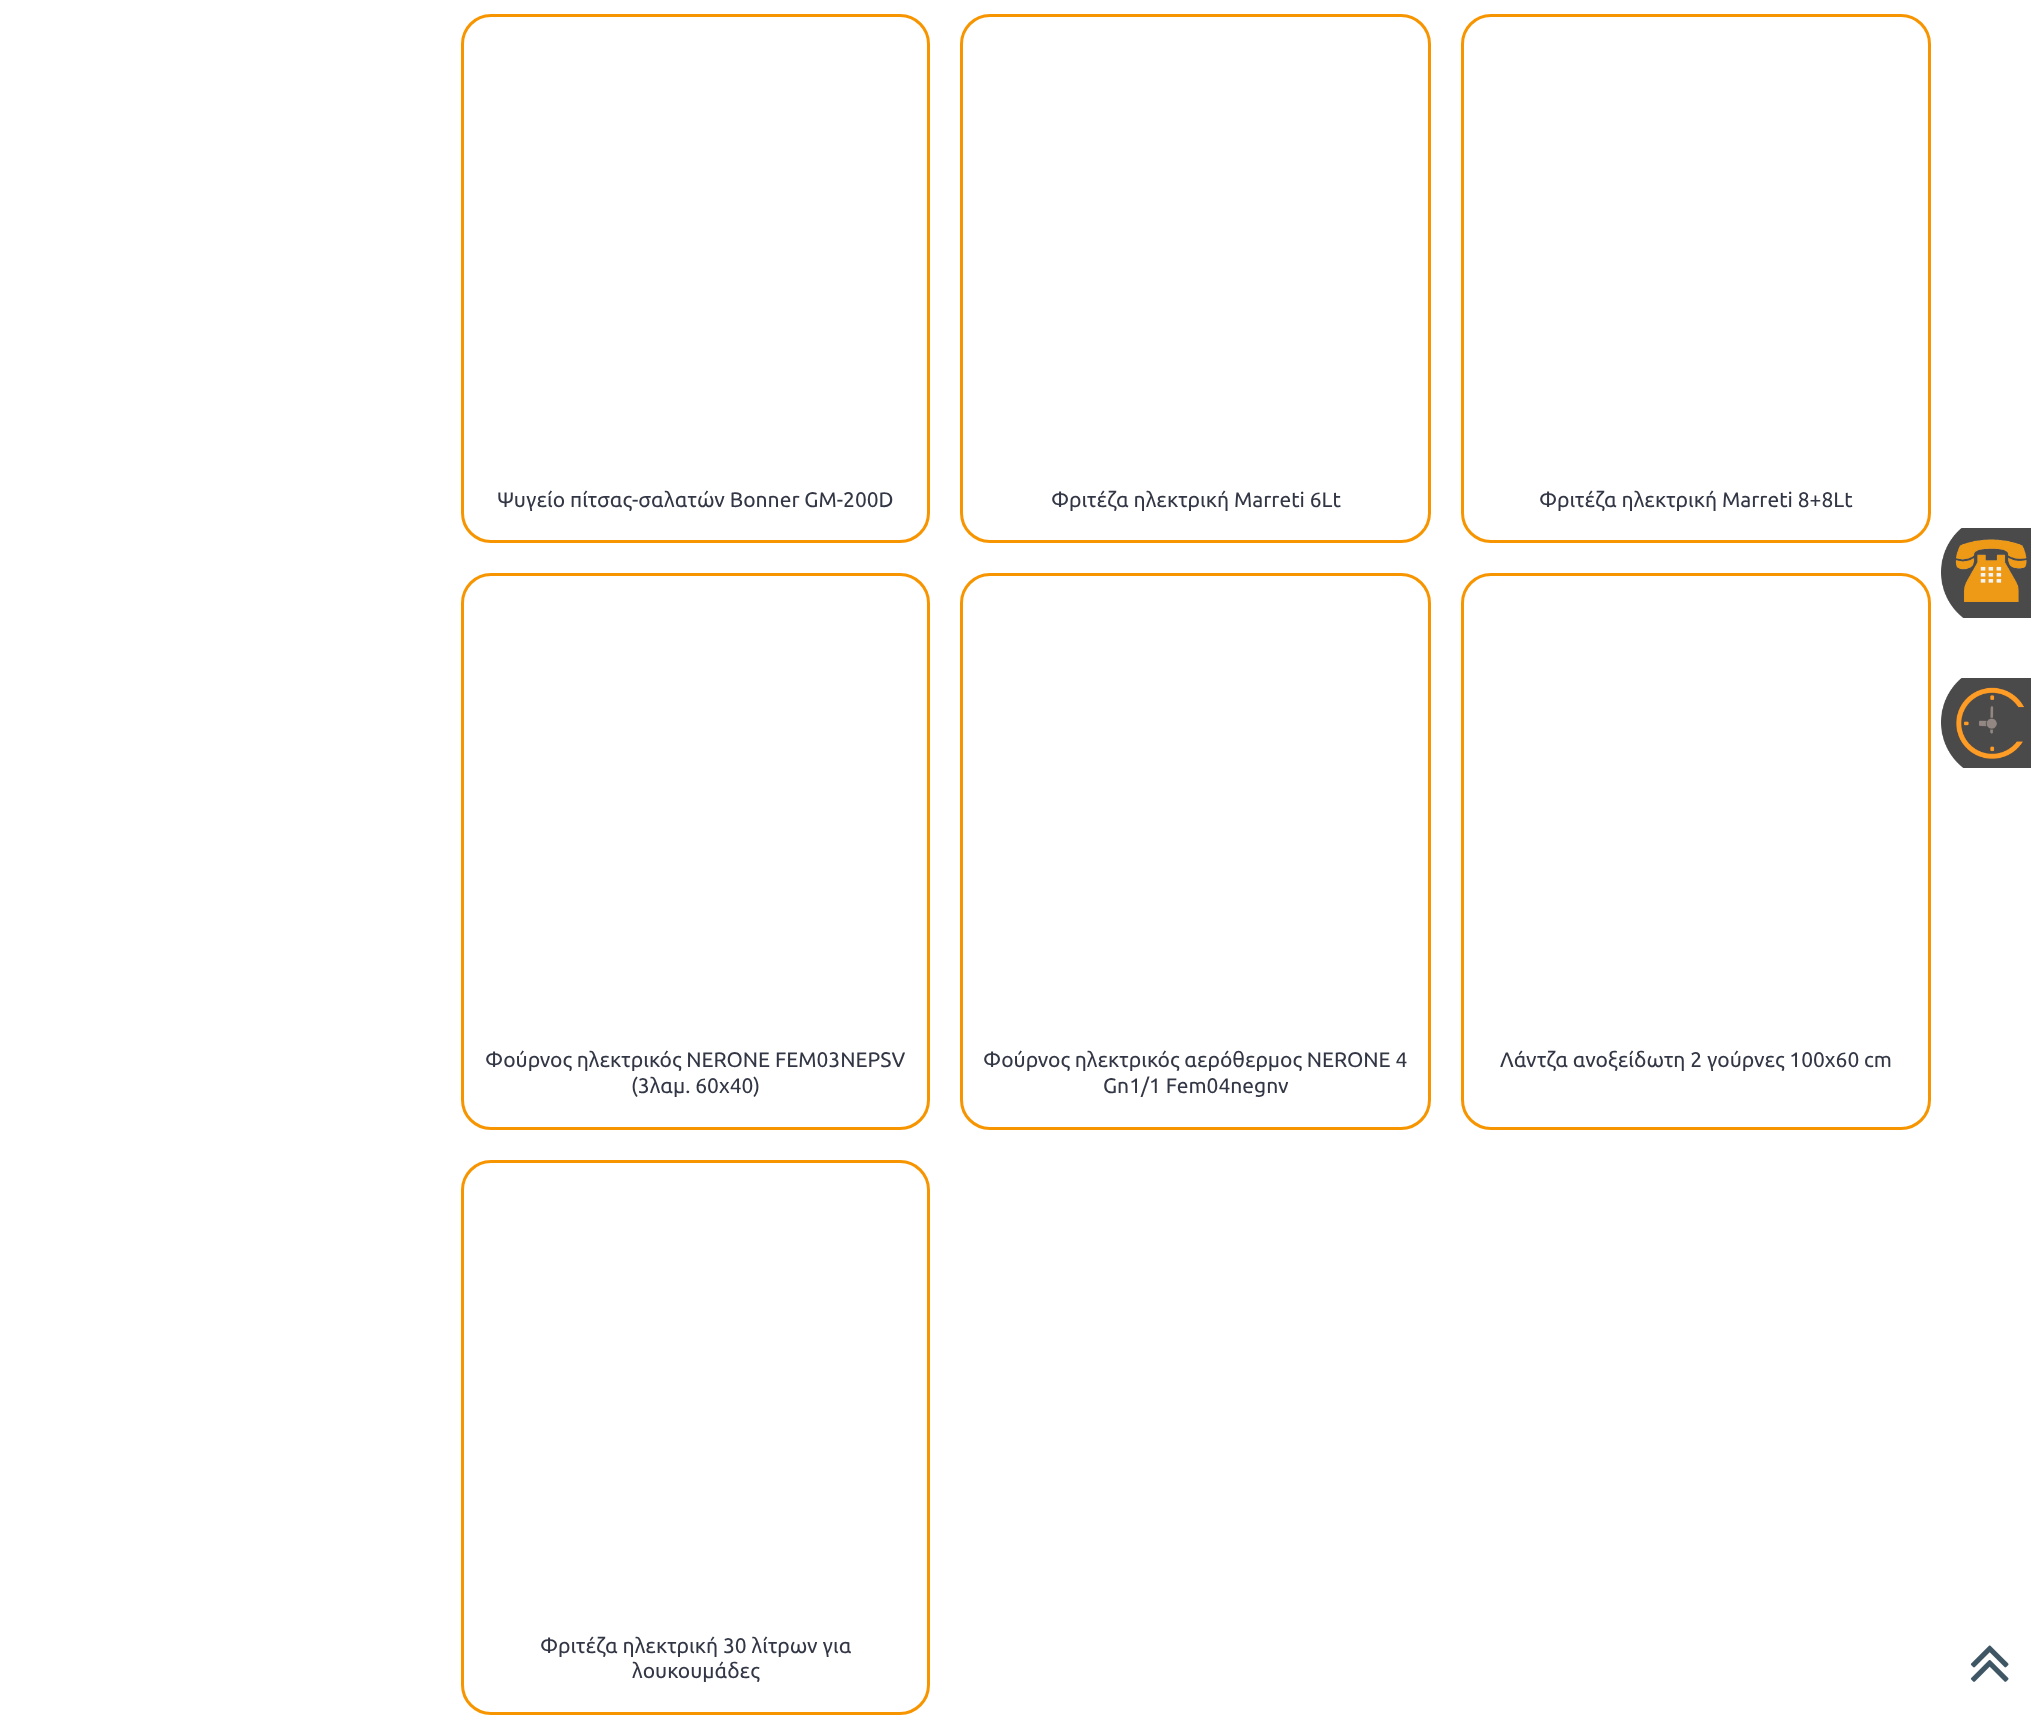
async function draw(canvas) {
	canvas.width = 2031;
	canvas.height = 1722;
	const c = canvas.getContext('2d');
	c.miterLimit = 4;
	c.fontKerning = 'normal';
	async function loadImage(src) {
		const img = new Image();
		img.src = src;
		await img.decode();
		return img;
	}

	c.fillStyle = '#fff';
	c.fillRect(0, 0, 2031, 1722);
	c.beginPath();
	c.roundRect(462.5, 15.5, 466, 526, 28.5);
	c.strokeStyle = '#f79501';
	c.lineWidth = 3;
	c.stroke();
	c.font = '21px Ubuntu';
	c.fillStyle = '#333745';
	c.fillText('Ψυγείο πίτσας-σαλατών Bonner GM-200D', 497, 507);
	c.beginPath();
	c.roundRect(961.5, 15.5, 468, 526, 28.5);
	c.stroke();
	c.fillText('Φριτέζα ηλεκτρική Marreti 6Lt', 1051, 507);
	c.beginPath();
	c.roundRect(1462.5, 15.5, 467, 526, 28.5);
	c.stroke();
	c.fillText('Φριτέζα ηλεκτρική Marreti 8+8Lt', 1539, 507);
	c.beginPath();
	c.roundRect(462.5, 574.5, 466, 554, 28.5);
	c.stroke();
	c.fillText('Φούρνος ηλεκτρικός NERONE FEM03NEPSV', 485, 1067);
	c.fillText('(3λαμ. 60χ40)', 631, 1093);
	c.beginPath();
	c.roundRect(961.5, 574.5, 468, 554, 28.5);
	c.stroke();
	c.fillText('Φούρνος ηλεκτρικός αερόθερμος NERONE 4', 983, 1067);
	c.fillText('Gn1/1 Fem04negnv', 1103, 1093);
	c.beginPath();
	c.roundRect(1462.5, 574.5, 467, 554, 28.5);
	c.stroke();
	c.fillText('Λάντζα ανοξείδωτη 2 γούρνες 100x60 cm', 1500, 1067);
	c.beginPath();
	c.roundRect(462.5, 1161.5, 466, 552, 28.5);
	c.stroke();
	c.fillText('Φριτέζα ηλεκτρική 30 λίτρων για', 540, 1653);
	c.fillText('λουκουμάδες', 632, 1678);
	c.drawImage(await loadImage('img1.png'), 1941, 528, 90, 90);
	c.drawImage(await loadImage('img2.png'), 1941, 678, 90, 90);
	c.drawImage(await loadImage('img3.png'), 1970, 1645, 39, 37);
}

draw(document.querySelector('canvas'));
